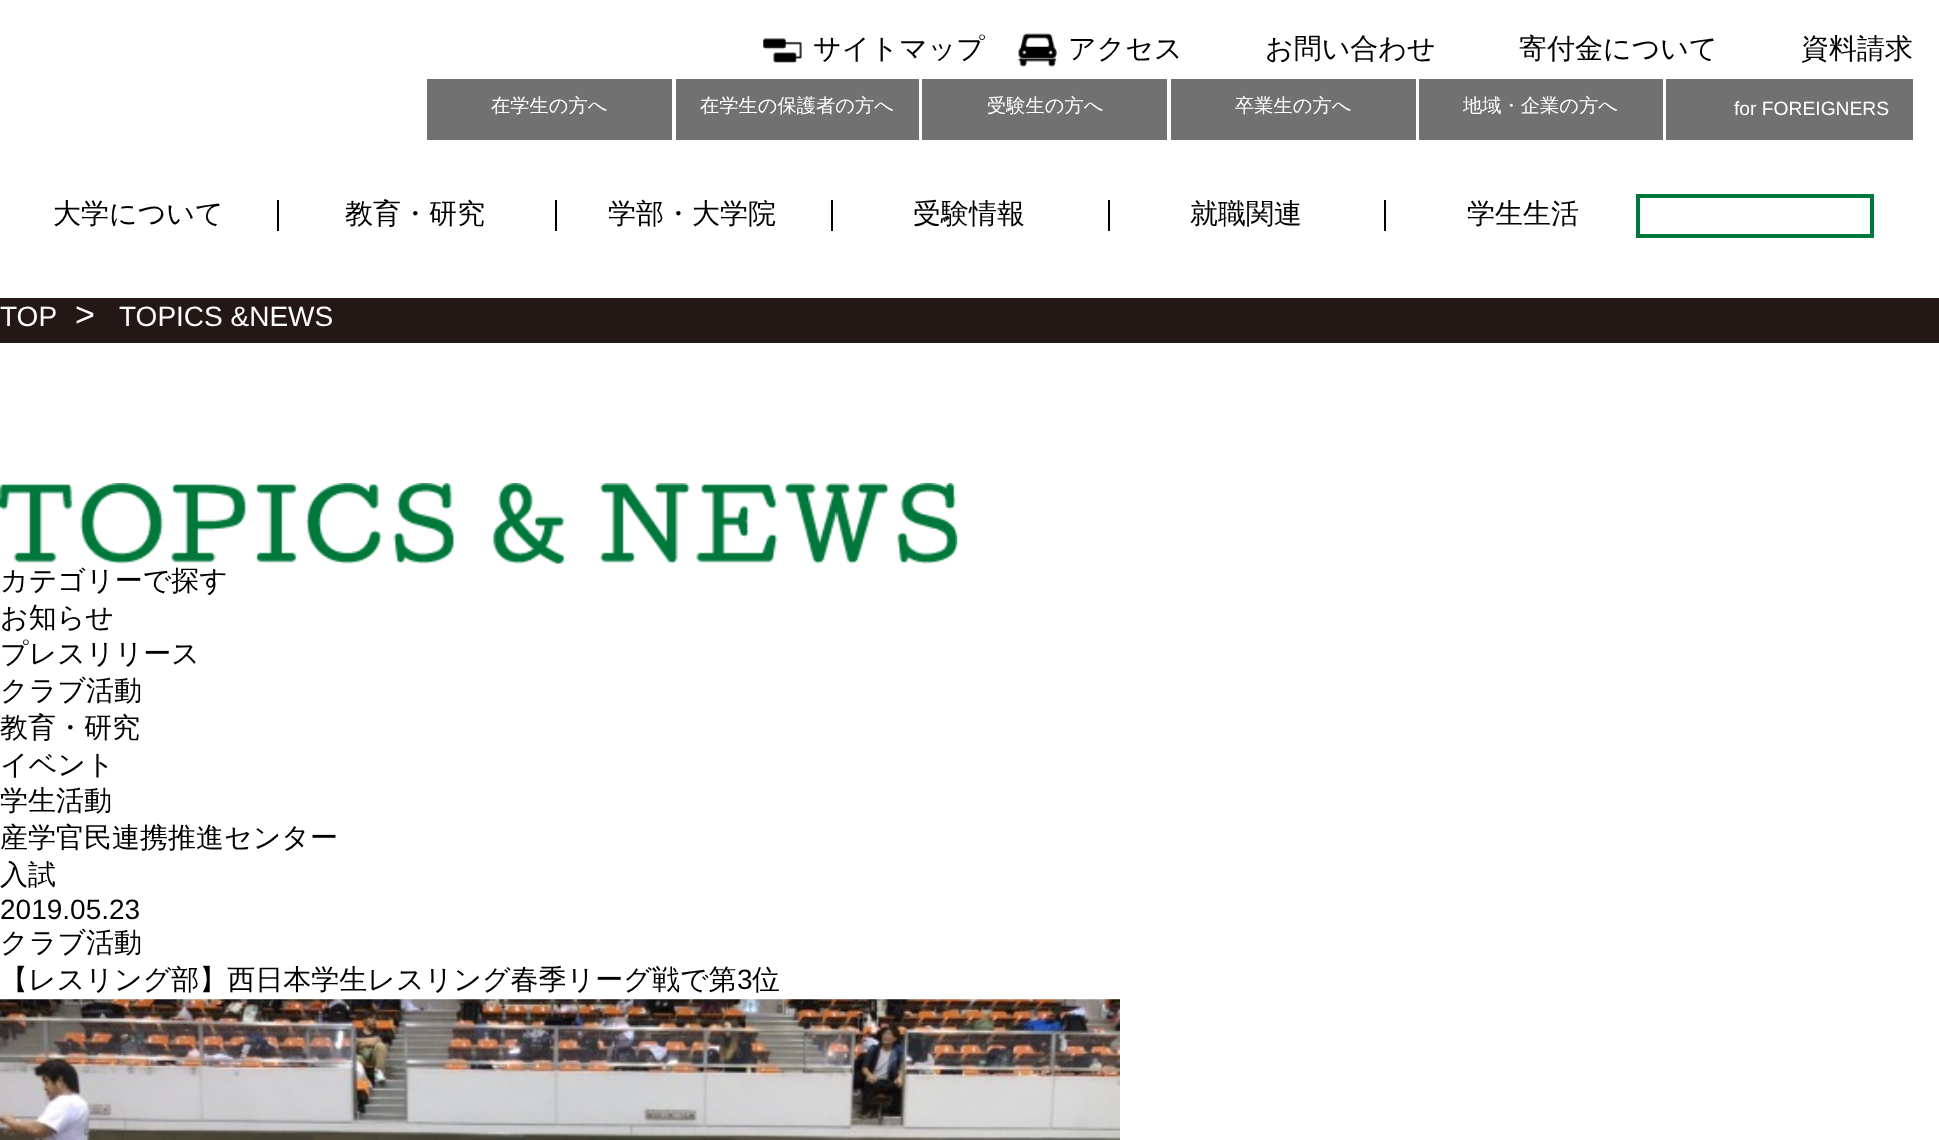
async function draw(canvas) {
	canvas.width = 1939;
	canvas.height = 1140;
	const c = canvas.getContext('2d');
	c.miterLimit = 4;
	c.fontKerning = 'normal';
	async function loadImage(src) {
		const img = new Image();
		img.src = src;
		await img.decode();
		return img;
	}

	c.fillStyle = '#fff';
	c.fillRect(0, 0, 1939, 1140);
	c.drawImage(await loadImage('img1.png'), 763, 38, 39, 25);
	c.font = '500 28px WenQuanYi Zen Hei';
	c.fillStyle = '#000';
	c.fillText('サイトマップ', 813, 58);
	c.drawImage(await loadImage('img2.png'), 1018, 33, 39, 34);
	for (const [text, x, y] of [
		['アクセス', 1068, 58],
		['お問い合わせ', 1265, 58],
		['寄付金について', 1519, 58],
		['資料請求', 1801, 58],
	]) {
		c.fillText(text, x, y);
	}
	c.fillStyle = '#727171';
	c.fillRect(427, 79, 245, 61);
	c.font = '500 19.25px WenQuanYi Zen Hei';
	c.fillStyle = '#fff';
	c.fillText('在学生の方へ', 491, 112);
	c.fillStyle = '#727171';
	c.fillRect(676, 79, 243, 61);
	c.fillStyle = '#fff';
	c.fillText('在学生の保護者の方へ', 700, 112);
	c.fillStyle = '#727171';
	c.fillRect(922, 79, 245, 61);
	c.fillStyle = '#fff';
	c.fillText('受験生の方へ', 987, 112);
	c.fillStyle = '#727171';
	c.fillRect(1171, 79, 245, 61);
	c.fillStyle = '#fff';
	c.fillText('卒業生の方へ', 1235, 112);
	c.fillStyle = '#727171';
	c.fillRect(1419, 79, 244, 61);
	c.fillStyle = '#fff';
	c.fillText('地域・企業の方へ', 1463, 112);
	c.fillStyle = '#727171';
	c.fillRect(1666, 79, 247, 61);
	c.font = '19.25px Liberation Sans';
	c.fillStyle = '#fff';
	c.fillText('for FOREIGNERS', 1734, 115);
	c.font = '500 28px WenQuanYi Zen Hei';
	c.fillStyle = '#000';
	c.fillText('大学について', 53, 223);
	c.fillRect(277, 200, 2, 31);
	c.fillText('教育・研究', 345, 223);
	c.fillRect(555, 200, 2, 31);
	c.fillText('学部・大学院', 608, 223);
	c.fillRect(831, 200, 2, 31);
	c.fillText('受験情報', 913, 223);
	c.fillRect(1108, 200, 2, 31);
	c.fillText('就職関連', 1190, 223);
	c.fillRect(1384, 200, 2, 31);
	c.fillText('学生生活', 1467, 223);
	c.strokeStyle = '#00783d';
	c.lineWidth = 4;
	c.strokeRect(1638, 196, 234, 40);
	c.fillStyle = '#231815';
	c.fillRect(0, 298, 1939, 45);
	c.font = '28px Liberation Sans';
	c.fillStyle = '#fff';
	c.fillText('TOP', 0, 326);
	c.font = '34px Liberation Sans';
	c.fillText('>', 75, 326);
	c.font = '28px Liberation Sans';
	c.fillText('TOPICS &NEWS', 119, 326);
	c.drawImage(await loadImage('img3.png'), 0, 483, 958, 81);
	c.font = '500 28px WenQuanYi Zen Hei';
	c.fillStyle = '#000';
	for (const [text, x, y] of [
		['カテゴリーで探す', 0, 590],
		['お知らせ', 0, 627],
		['プレスリリース', 0, 663],
		['クラブ活動', 0, 700],
		['教育・研究', 0, 737],
		['イベント', 0, 774],
		['学生活動', 0, 810],
		['産学官民連携推進センター', 0, 847],
		['入試', 0, 884],
	]) {
		c.fillText(text, x, y);
	}
	c.font = '28px Liberation Sans';
	c.fillText('2019.05.23', 0, 919);
	c.font = '500 28px WenQuanYi Zen Hei';
	c.fillText('クラブ活動', 0, 952);
	c.fillText('【レスリング部】西日本学生レスリング春季リーグ戦で第', 0, 989);
	c.font = '28px Liberation Sans';
	c.fillText('3', 737, 989);
	c.font = '500 28px WenQuanYi Zen Hei';
	c.fillText('位', 752, 989);
	c.drawImage(await loadImage('img4.png'), 0, 999, 1120, 141);
}

draw(document.querySelector('canvas'));
